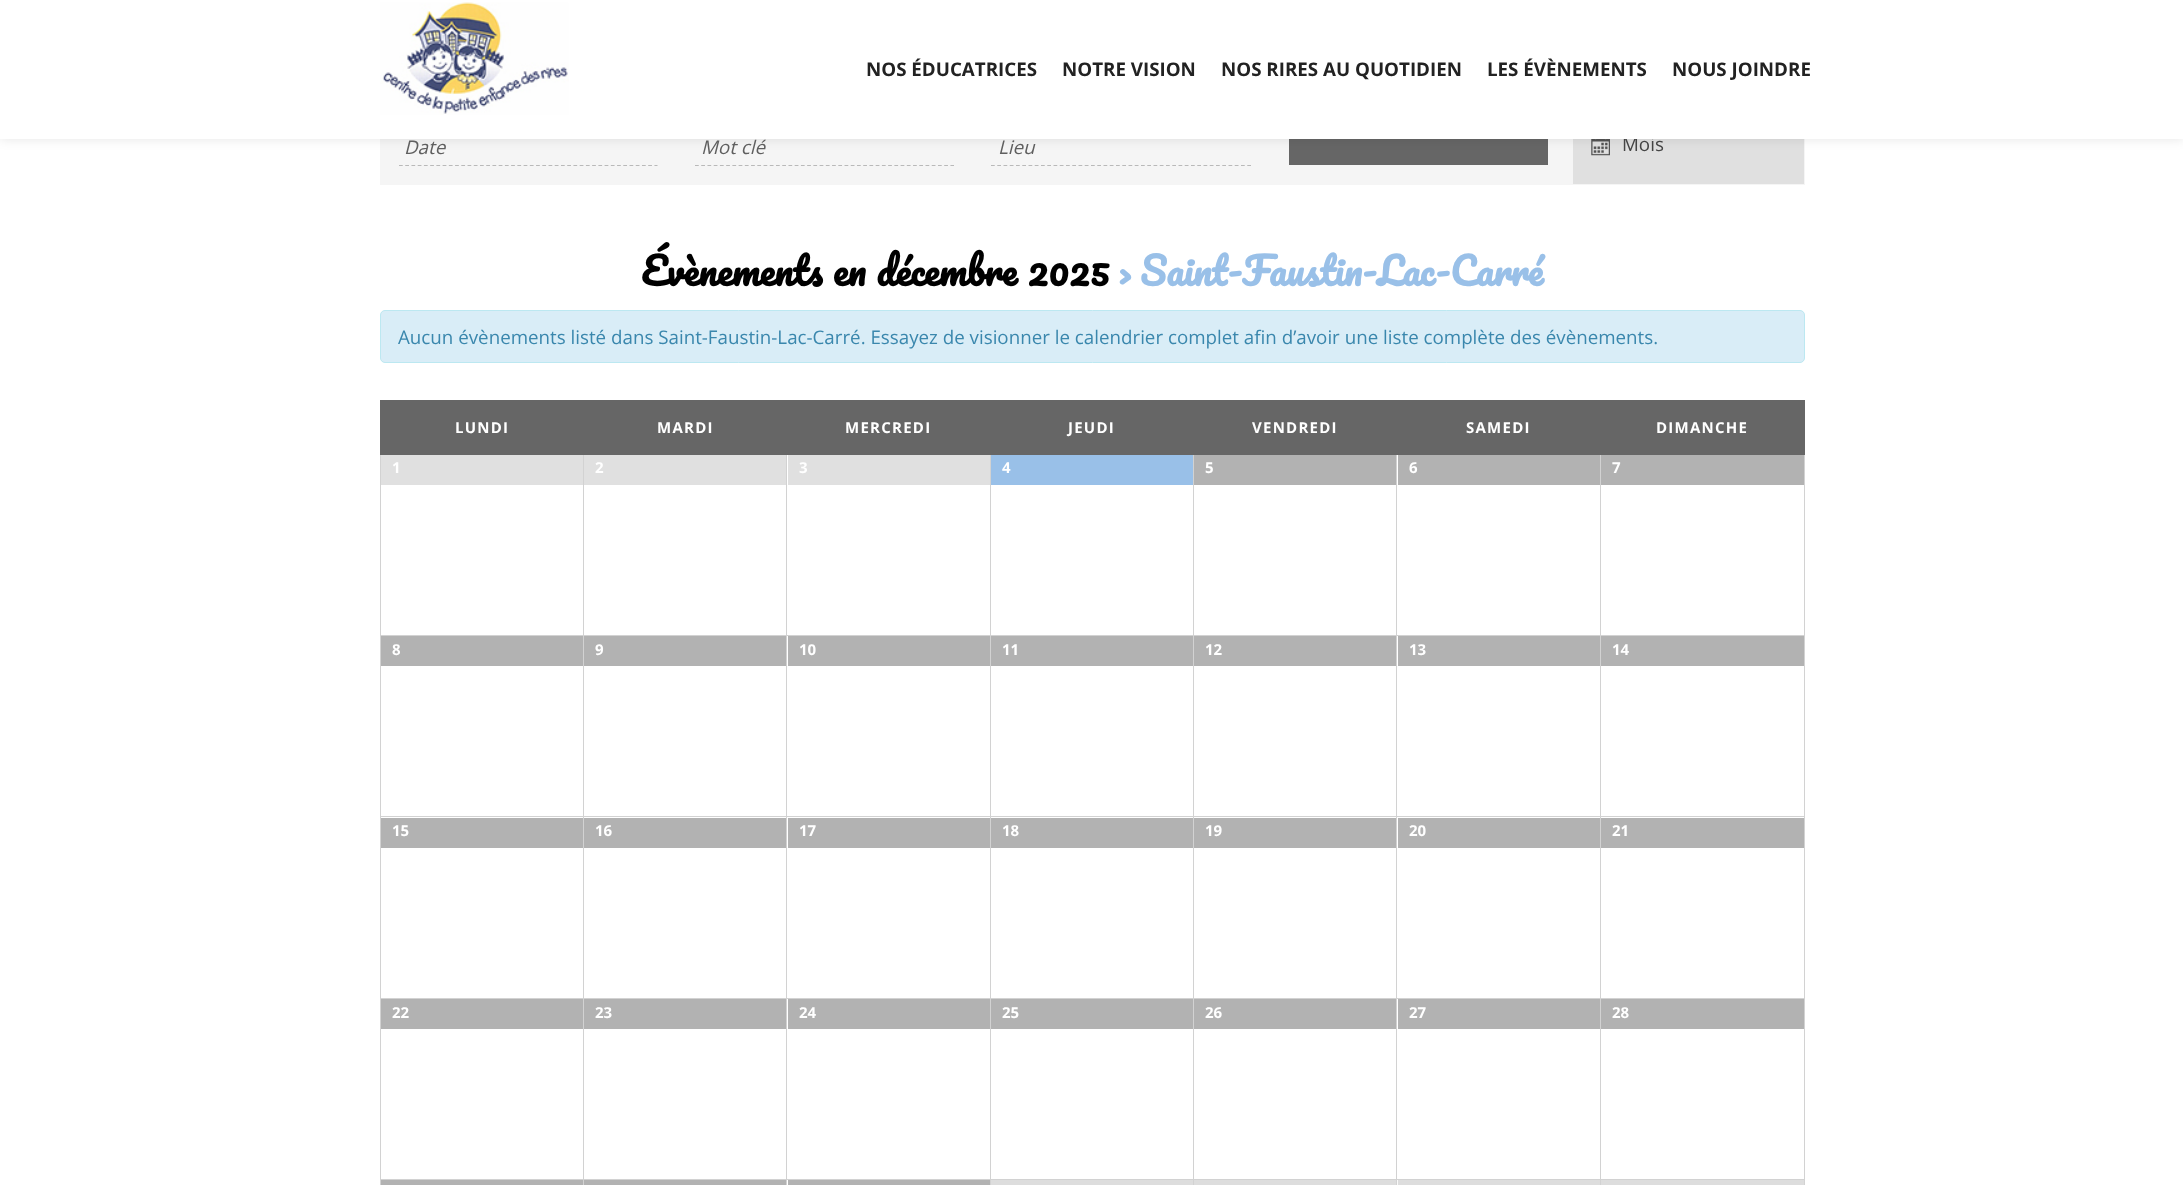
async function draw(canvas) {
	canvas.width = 2183;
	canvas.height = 1185;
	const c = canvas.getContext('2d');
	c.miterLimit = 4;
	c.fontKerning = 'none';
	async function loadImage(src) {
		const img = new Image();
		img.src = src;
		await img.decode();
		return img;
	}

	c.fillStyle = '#fff';
	c.fillRect(0, 0, 2183, 1185);
	for (const [x, y, w, h, color] of [
		[380, 139, 1425, 46, '#f5f5f5'],
		[1289, 139, 259, 26, '#666'],
		[1573, 139, 231, 45, '#e0e0e0'],
	]) {
		c.fillStyle = color;
		c.fillRect(x, y, w, h);
	}
	c.drawImage(await loadImage('img2.png'), 1591, 139, 19, 17);
	c.fillStyle = '#0000001a';
	c.filter = 'blur(6px)';
	c.beginPath();
	c.rect(0, 0, 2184, 139);
	c.fill();
	c.filter = 'none';
	c.font = '18.75px Open Sans';
	c.fillStyle = '#444';
	c.fillText('Mois', 1622, 151);
	c.fillStyle = '#fff';
	c.fillRect(0, 0, 2183, 139);
	c.drawImage(await loadImage('img1.png'), 380, 2, 189, 113);
	c.font = 'bold 18.75px Open Sans';
	c.fillStyle = '#222';
	for (const [text, x, y] of [
		['NOS ÉDUCATRICES', 866, 76],
		['NOTRE VISION', 1062, 76],
		['NOS RIRES AU QUOTIDIEN', 1221, 76],
		['LES ÉVÈNEMENTS', 1487, 76],
		['NOUS JOINDRE', 1672, 76],
	]) {
		c.fillText(text, x, y);
	}
	c.beginPath();
	c.moveTo(399, 165.5);
	c.lineTo(657.5, 165.5);
	c.strokeStyle = '#b9b9b9';
	c.lineWidth = 1.2;
	c.setLineDash([3.75, 2.48]);
	c.stroke();
	c.font = 'italic 18.75px Open Sans';
	c.fillStyle = '#5f5f5f';
	c.fillText('Date', 404, 154);
	c.beginPath();
	c.moveTo(695, 165.5);
	c.lineTo(954, 165.5);
	c.stroke();
	c.fillText('Mot clé', 701, 154);
	c.beginPath();
	c.moveTo(991, 165.5);
	c.lineTo(1251, 165.5);
	c.setLineDash([3.75, 2.5]);
	c.stroke();
	c.fillText('Lieu', 998, 154);
	c.wordSpacing = '0.5px';
	c.font = 'bold 37.5px Pacifico';
	c.fillStyle = '#000';
	c.fillText('Évènements en décembre 2025', 641, 286);
	c.wordSpacing = '-1px';
	c.fillStyle = '#99c0e8';
	c.fillText('› Saint-Faustin-Lac-Carré', 1118, 286);
	c.fillStyle = '#d9edf7';
	c.beginPath();
	c.roundRect(380.5, 310.5, 1424, 52, 4.5);
	c.fill();
	c.strokeStyle = '#bce8f1';
	c.lineWidth = 1;
	c.setLineDash([]);
	c.stroke();
	c.wordSpacing = '0px';
	c.font = '18.75px Open Sans';
	c.fillStyle = '#3a87ad';
	c.fillText('Aucun évènements listé dans Saint-Faustin-Lac-Carré. Essayez de visionner le calendrier complet afin d’avoir une liste complète des évènements.', 398, 344);
	for (const [x, y, w, h, color] of [
		[381, 400, 202, 55, '#666'],
		[1804, 454, 1, 731, '#d2d2d2'],
		[1600, 1179, 1, 6, '#d2d2d2'],
		[1600, 1179, 205, 1, '#d2d2d2'],
		[1600, 998, 1, 182, '#d2d2d2'],
		[1600, 998, 205, 1, '#d2d2d2'],
		[1600, 816, 1, 183, '#d2d2d2'],
		[1600, 816, 205, 1, '#d2d2d2'],
		[1600, 635, 1, 183, '#d2d2d2'],
		[1600, 635, 205, 1, '#d2d2d2'],
		[1600, 454, 1, 182, '#d2d2d2'],
		[1396, 1179, 1, 6, '#d2d2d2'],
		[1396, 1179, 205, 1, '#d2d2d2'],
		[1396, 998, 1, 182, '#d2d2d2'],
		[1396, 998, 205, 1, '#d2d2d2'],
		[1396, 816, 1, 183, '#d2d2d2'],
		[1396, 816, 205, 1, '#d2d2d2'],
		[1396, 635, 1, 183, '#d2d2d2'],
		[1396, 635, 205, 1, '#d2d2d2'],
		[1194, 400, 406, 55, '#666'],
		[1396, 454, 1, 182, '#d2d2d2'],
		[1193, 1179, 1, 6, '#d2d2d2'],
		[1193, 1179, 205, 1, '#d2d2d2'],
		[1193, 998, 1, 182, '#d2d2d2'],
		[1193, 998, 205, 1, '#d2d2d2'],
		[1193, 816, 1, 183, '#d2d2d2'],
		[1193, 816, 205, 1, '#d2d2d2'],
		[1193, 635, 1, 183, '#d2d2d2'],
		[1193, 635, 205, 1, '#d2d2d2'],
		[1193, 454, 1, 182, '#d2d2d2'],
		[990, 1179, 1, 6, '#d2d2d2'],
		[990, 1179, 204, 1, '#d2d2d2'],
		[990, 998, 1, 182, '#d2d2d2'],
		[990, 998, 204, 1, '#d2d2d2'],
		[990, 816, 1, 183, '#d2d2d2'],
		[990, 816, 204, 1, '#d2d2d2'],
		[990, 635, 1, 183, '#d2d2d2'],
		[990, 635, 204, 1, '#d2d2d2'],
		[990, 454, 1, 182, '#d2d2d2'],
		[786, 1179, 1, 6, '#d2d2d2'],
		[786, 1179, 205, 1, '#d2d2d2'],
		[786, 998, 1, 182, '#d2d2d2'],
		[786, 998, 205, 1, '#d2d2d2'],
		[786, 816, 1, 183, '#d2d2d2'],
		[786, 816, 205, 1, '#d2d2d2'],
		[786, 635, 1, 183, '#d2d2d2'],
		[786, 635, 205, 1, '#d2d2d2'],
		[786, 454, 1, 182, '#d2d2d2'],
		[583, 1179, 1, 6, '#d2d2d2'],
		[583, 1179, 205, 1, '#d2d2d2'],
		[583, 998, 1, 182, '#d2d2d2'],
		[583, 998, 205, 1, '#d2d2d2'],
		[583, 816, 1, 183, '#d2d2d2'],
		[583, 816, 205, 1, '#d2d2d2'],
		[583, 635, 1, 183, '#d2d2d2'],
		[583, 635, 205, 1, '#d2d2d2'],
		[583, 454, 1, 182, '#d2d2d2'],
		[380, 1179, 1, 6, '#d2d2d2'],
		[380, 1179, 204, 1, '#d2d2d2'],
		[380, 998, 1, 182, '#d2d2d2'],
		[380, 998, 204, 1, '#d2d2d2'],
		[380, 816, 1, 183, '#d2d2d2'],
		[380, 816, 204, 1, '#d2d2d2'],
		[380, 635, 1, 183, '#d2d2d2'],
		[380, 635, 204, 1, '#d2d2d2'],
		[380, 454, 1, 182, '#d2d2d2'],
		[380, 400, 1, 55, '#666'],
	]) {
		c.fillStyle = color;
		c.fillRect(x, y, w, h);
	}
	c.letterSpacing = '1.25px';
	c.font = 'bold 15px Open Sans';
	c.fillStyle = '#fff';
	c.fillText('LUNDI', 455, 433);
	c.fillStyle = '#666';
	c.fillRect(584, 400, 202, 55);
	c.fillRect(583, 400, 1, 55);
	c.fillStyle = '#fff';
	c.fillText('MARDI', 657, 433);
	c.fillStyle = '#666';
	c.fillRect(787, 400, 203, 55);
	c.fillRect(786, 400, 1, 55);
	c.fillStyle = '#fff';
	c.fillText('MERCREDI', 845, 433);
	c.fillStyle = '#666';
	c.fillRect(991, 400, 202, 55);
	c.fillRect(990, 400, 1, 55);
	c.fillStyle = '#fff';
	c.fillText('JEUDI', 1068, 433);
	c.fillStyle = '#666';
	c.fillRect(1193, 400, 1, 55);
	c.fillStyle = '#fff';
	c.fillText('VENDREDI', 1252, 433);
	c.fillStyle = '#666';
	c.fillRect(1396, 454, 1, 1);
	c.fillStyle = '#fff';
	c.fillText('SAMEDI', 1466, 433);
	for (const [x, y, w, h, color] of [
		[1601, 400, 203, 55, '#666'],
		[1804, 400, 1, 55, '#666'],
		[1600, 400, 1, 55, '#666'],
	]) {
		c.fillStyle = color;
		c.fillRect(x, y, w, h);
	}
	c.fillStyle = '#fff';
	c.fillText('DIMANCHE', 1656, 433);
	for (const [x, y, w, h, color] of [
		[381, 1180, 202, 5, '#b2b2b2'],
		[584, 1180, 202, 5, '#b2b2b2'],
		[788, 1180, 202, 5, '#b2b2b2'],
		[991, 1180, 202, 5, '#ddd'],
		[1397, 1180, 1, 5, '#f9f9f9'],
		[1194, 1180, 202, 5, '#ddd'],
		[1398, 1180, 202, 5, '#ddd'],
		[1601, 1180, 203, 5, '#ddd'],
		[381, 455, 202, 30, '#e0e0e0'],
	]) {
		c.fillStyle = color;
		c.fillRect(x, y, w, h);
	}
	c.letterSpacing = '0px';
	c.fillStyle = '#fff';
	c.fillText('1', 392, 473);
	c.fillStyle = '#e0e0e0';
	c.fillRect(584, 455, 202, 30);
	c.fillStyle = '#fff';
	c.fillText('2', 595, 473);
	c.fillStyle = '#e0e0e0';
	c.fillRect(788, 455, 202, 30);
	c.fillStyle = '#fff';
	c.fillText('3', 799, 473);
	c.fillStyle = '#99c0e8';
	c.fillRect(991, 455, 202, 30);
	c.fillStyle = '#fff';
	c.fillText('4', 1002, 473);
	c.fillStyle = '#b2b2b2';
	c.fillRect(1194, 455, 202, 30);
	c.fillStyle = '#fff';
	c.fillText('5', 1205, 473);
	c.fillStyle = '#b2b2b2';
	c.fillRect(1398, 455, 202, 30);
	c.fillStyle = '#fff';
	c.fillText('6', 1409, 473);
	c.fillStyle = '#b2b2b2';
	c.fillRect(1601, 455, 203, 30);
	c.fillStyle = '#fff';
	c.fillText('7', 1612, 473);
	c.fillStyle = '#b2b2b2';
	c.fillRect(381, 636, 202, 30);
	c.fillStyle = '#fff';
	c.fillText('8', 392, 655);
	c.fillStyle = '#b2b2b2';
	c.fillRect(584, 636, 202, 30);
	c.fillStyle = '#fff';
	c.fillText('9', 595, 655);
	c.fillStyle = '#b2b2b2';
	c.fillRect(788, 636, 202, 30);
	c.fillStyle = '#fff';
	c.fillText('10', 799, 655);
	c.fillStyle = '#b2b2b2';
	c.fillRect(991, 636, 202, 30);
	c.fillStyle = '#fff';
	c.fillText('11', 1002, 655);
	c.fillStyle = '#b2b2b2';
	c.fillRect(1194, 636, 202, 30);
	c.fillStyle = '#fff';
	c.fillText('12', 1205, 655);
	c.fillStyle = '#b2b2b2';
	c.fillRect(1398, 636, 202, 30);
	c.fillStyle = '#fff';
	c.fillText('13', 1409, 655);
	c.fillStyle = '#b2b2b2';
	c.fillRect(1601, 636, 203, 30);
	c.fillStyle = '#fff';
	c.fillText('14', 1612, 655);
	c.fillStyle = '#b2b2b2';
	c.fillRect(381, 818, 202, 30);
	c.fillStyle = '#fff';
	c.fillText('15', 392, 836);
	c.fillStyle = '#b2b2b2';
	c.fillRect(584, 818, 202, 30);
	c.fillStyle = '#fff';
	c.fillText('16', 595, 836);
	c.fillStyle = '#b2b2b2';
	c.fillRect(788, 818, 202, 30);
	c.fillStyle = '#fff';
	c.fillText('17', 799, 836);
	c.fillStyle = '#b2b2b2';
	c.fillRect(991, 818, 202, 30);
	c.fillStyle = '#fff';
	c.fillText('18', 1002, 836);
	c.fillStyle = '#b2b2b2';
	c.fillRect(1194, 818, 202, 30);
	c.fillStyle = '#fff';
	c.fillText('19', 1205, 836);
	c.fillStyle = '#b2b2b2';
	c.fillRect(1398, 818, 202, 30);
	c.fillStyle = '#fff';
	c.fillText('20', 1409, 836);
	c.fillStyle = '#b2b2b2';
	c.fillRect(1601, 818, 203, 30);
	c.fillStyle = '#fff';
	c.fillText('21', 1612, 836);
	c.fillStyle = '#b2b2b2';
	c.fillRect(381, 999, 202, 30);
	c.fillStyle = '#fff';
	c.fillText('22', 392, 1018);
	c.fillStyle = '#b2b2b2';
	c.fillRect(584, 999, 202, 30);
	c.fillStyle = '#fff';
	c.fillText('23', 595, 1018);
	c.fillStyle = '#b2b2b2';
	c.fillRect(788, 999, 202, 30);
	c.fillStyle = '#fff';
	c.fillText('24', 799, 1018);
	c.fillStyle = '#b2b2b2';
	c.fillRect(991, 999, 202, 30);
	c.fillStyle = '#fff';
	c.fillText('25', 1002, 1018);
	c.fillStyle = '#b2b2b2';
	c.fillRect(1194, 999, 202, 30);
	c.fillStyle = '#fff';
	c.fillText('26', 1205, 1018);
	c.fillStyle = '#b2b2b2';
	c.fillRect(1398, 999, 202, 30);
	c.fillStyle = '#fff';
	c.fillText('27', 1409, 1018);
	c.fillStyle = '#b2b2b2';
	c.fillRect(1601, 999, 203, 30);
	c.fillStyle = '#fff';
	c.fillText('28', 1612, 1018);
}

draw(document.querySelector('canvas'));
